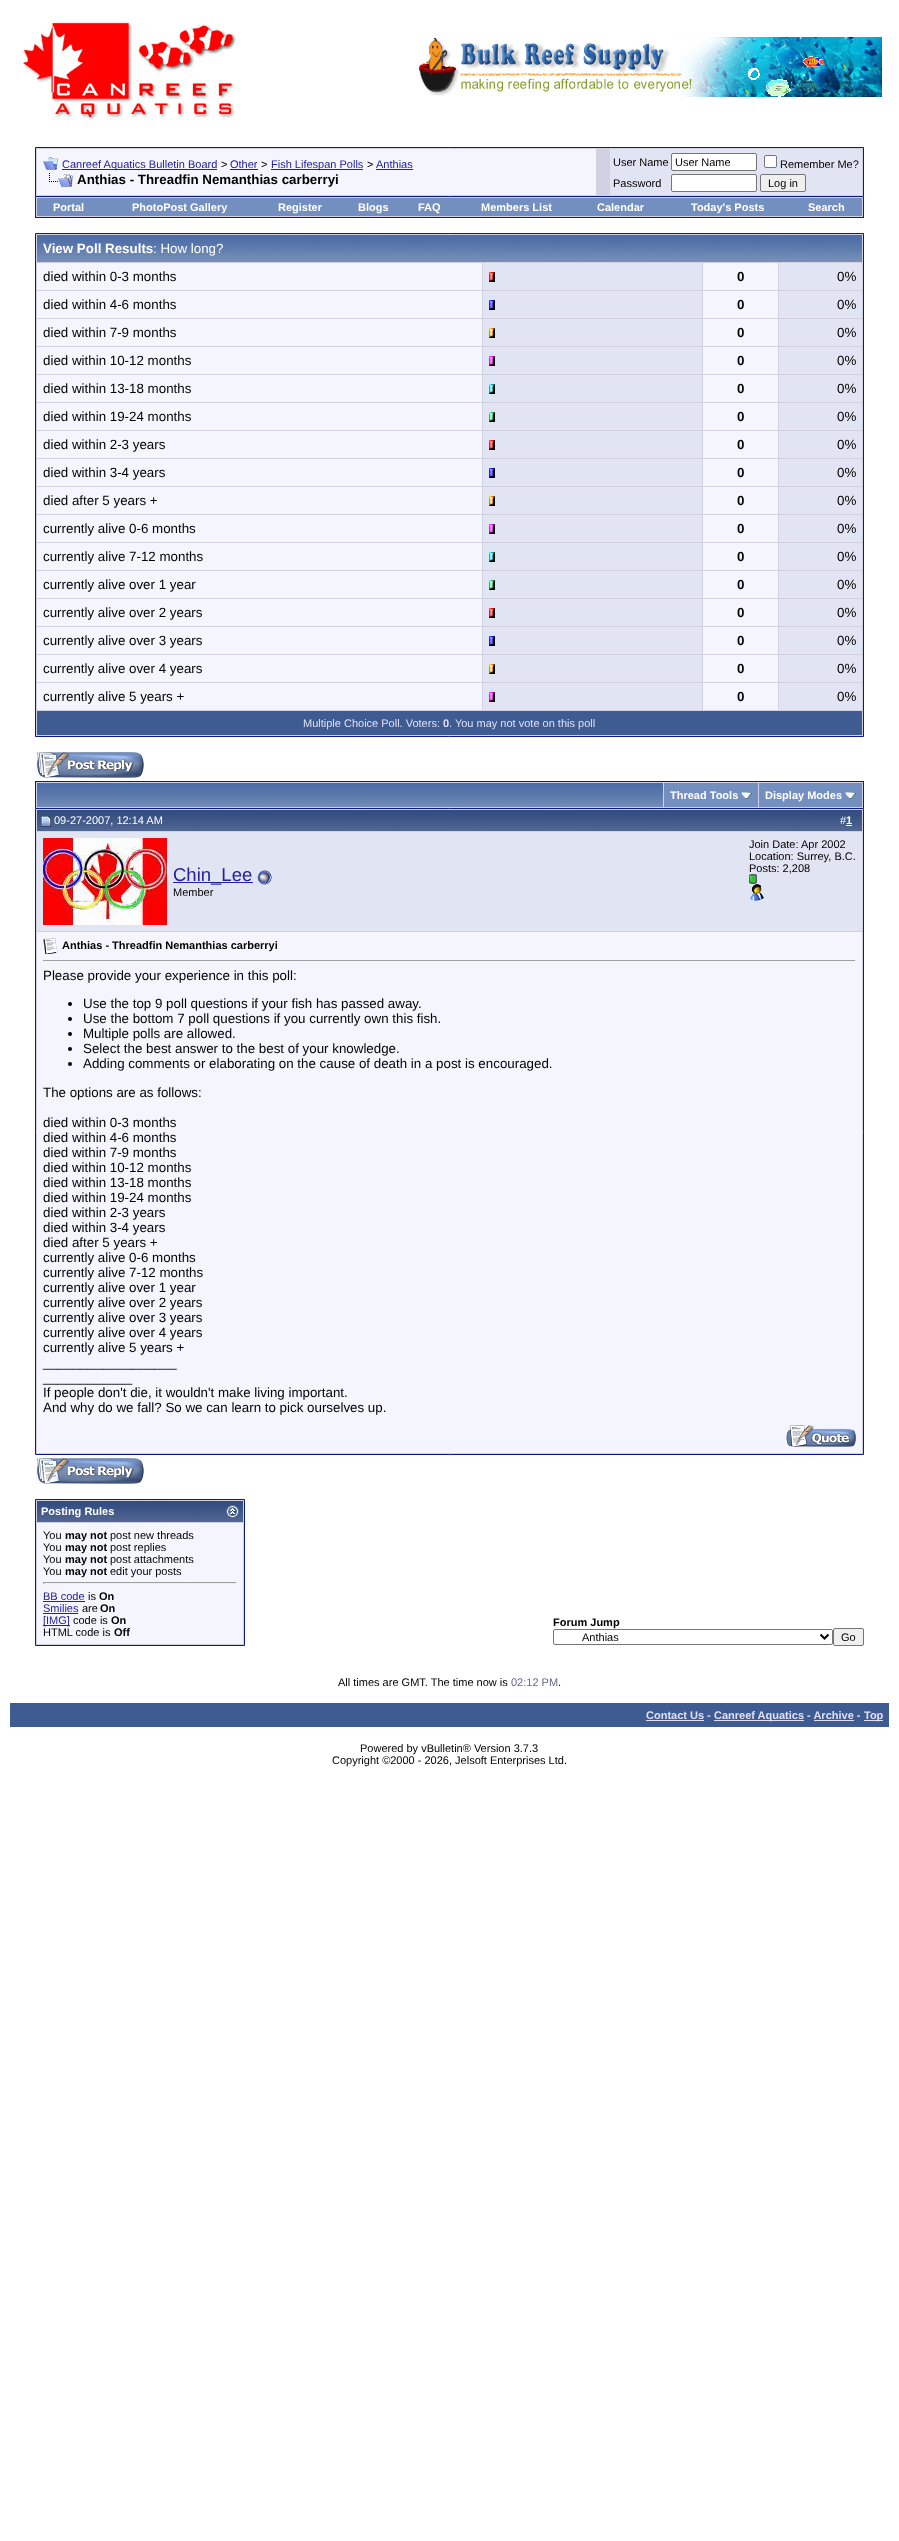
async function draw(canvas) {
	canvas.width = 899;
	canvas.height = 2541;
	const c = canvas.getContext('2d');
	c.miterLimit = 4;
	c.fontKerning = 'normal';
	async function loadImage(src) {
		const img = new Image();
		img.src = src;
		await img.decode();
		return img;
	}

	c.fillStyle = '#fff';
	c.fillRect(0, 0, 899, 2541);
	c.drawImage(await loadImage('img1.png'), 22, 22, 214, 99);
	c.drawImage(await loadImage('img2.png'), 419, 37, 463, 60);
	c.fillStyle = '#d1d1e1';
	c.beginPath();
	c.rect(35.5, 147.5, 828, 49);
	c.fill();
	c.strokeStyle = '#0b198c';
	c.stroke();
	c.fillStyle = '#f5f5ff';
	c.fillRect(37, 149, 559, 46);
	c.drawImage(await loadImage('img3.png'), 43, 157, 15, 13);
	c.fillStyle = '#22229c';
	c.fillRect(62, 169, 155, 1);
	c.font = '11px Liberation Sans';
	c.fillText('Canreef Aquatics Bulletin Board', 62, 168);
	c.fillStyle = '#000';
	c.fillText('>', 221, 168);
	c.fillStyle = '#22229c';
	c.fillText('Other', 230, 168);
	c.fillRect(230, 169, 28, 1);
	c.fillStyle = '#000';
	c.fillText('>', 261, 168);
	c.fillStyle = '#22229c';
	c.fillRect(271, 169, 92, 1);
	c.fillText('Fish Lifespan Polls', 271, 168);
	c.fillStyle = '#000';
	c.fillText('>', 367, 168);
	c.fillStyle = '#22229c';
	c.fillText('Anthias', 376, 168);
	c.fillRect(376, 169, 37, 1);
	c.drawImage(await loadImage('img4.png'), 49, 173, 24, 14);
	c.font = 'bold 13.35px Liberation Sans';
	c.fillStyle = '#000';
	c.fillText('Anthias - Threadfin Nemanthias carberryi', 77, 184);
	c.fillStyle = '#e1e4f2';
	c.fillRect(610, 149, 252, 46);
	c.font = '11px Liberation Sans';
	c.fillStyle = '#000';
	c.fillText('User Name', 613, 166);
	c.fillStyle = '#fff';
	c.beginPath();
	c.roundRect(671.5, 153.5, 85, 17, 1.5);
	c.fill();
	c.strokeStyle = '#767676';
	c.stroke();
	c.fillStyle = '#000';
	c.fillText('User Name', 675, 166);
	c.fillStyle = '#fff';
	c.beginPath();
	c.roundRect(764.5, 155.5, 12, 12, 1.5);
	c.fill();
	c.stroke();
	c.fillStyle = '#000';
	c.fillText('Remember Me?', 780, 168);
	c.fillText('Password', 613, 187);
	c.fillStyle = '#fff';
	c.beginPath();
	c.roundRect(671.5, 174.5, 85, 17, 1.5);
	c.fill();
	c.stroke();
	c.fillStyle = '#efefef';
	c.beginPath();
	c.roundRect(760.5, 174.5, 45, 17, 1.5);
	c.fill();
	c.stroke();
	c.fillStyle = '#000';
	c.fillText('Log in', 768, 187);
	for (const [x, y, w, h, color] of [
		[36, 197, 827, 20, '#d1d1e1'],
		[863, 197, 1, 21, '#0b198c'],
		[35, 217, 829, 1, '#0b198c'],
		[35, 197, 1, 21, '#0b198c'],
		[37, 198, 825, 18, '#738fbf'],
	]) {
		c.fillStyle = color;
		c.fillRect(x, y, w, h);
	}
	c.font = 'bold 11px Liberation Sans';
	c.fillStyle = '#fff';
	for (const [text, x, y] of [
		['Portal', 53, 211],
		['PhotoPost Gallery', 132, 211],
		['Register', 278, 211],
		['Blogs', 358, 211],
		['FAQ', 418, 211],
		['Members List', 481, 211],
		['Calendar', 597, 211],
		['Today\'s Posts', 691, 211],
		['Search', 808, 211],
	]) {
		c.fillText(text, x, y);
	}
	c.fillStyle = '#d1d1e1';
	c.beginPath();
	c.rect(35.5, 233.5, 828, 503);
	c.fill();
	c.strokeStyle = '#0b198c';
	c.stroke();
	c.drawImage(await loadImage('img5.png'), 37, 235, 825, 27);
	c.font = 'bold 13.35px Liberation Sans';
	c.fillStyle = '#fff';
	c.fillText('View Poll Results', 43, 253);
	c.font = '13.35px Liberation Sans';
	c.fillText(': How long?', 153, 253);
	c.fillStyle = '#f5f5ff';
	c.fillRect(37, 263, 445, 27);
	c.fillStyle = '#000';
	c.fillText('died within 0-3 months', 43, 281);
	c.fillStyle = '#e1e4f2';
	c.fillRect(483, 263, 219, 27);
	c.drawImage(await loadImage('img6.png'), 489, 272, 3, 10);
	c.drawImage(await loadImage('img7.png'), 492, 272, 3, 10);
	c.fillStyle = '#f5f5ff';
	c.fillRect(703, 263, 75, 27);
	c.font = 'bold 13.35px Liberation Sans';
	c.fillStyle = '#000';
	c.fillText('0', 737, 281);
	c.fillStyle = '#e1e4f2';
	c.fillRect(779, 263, 83, 27);
	c.font = '13.35px Liberation Sans';
	c.fillStyle = '#000';
	c.fillText('0%', 837, 281);
	c.fillStyle = '#f5f5ff';
	c.fillRect(37, 291, 445, 27);
	c.fillStyle = '#000';
	c.fillText('died within 4-6 months', 43, 309);
	c.fillStyle = '#e1e4f2';
	c.fillRect(483, 291, 219, 27);
	c.drawImage(await loadImage('img8.png'), 489, 300, 3, 10);
	c.drawImage(await loadImage('img9.png'), 492, 300, 3, 10);
	c.fillStyle = '#f5f5ff';
	c.fillRect(703, 291, 75, 27);
	c.font = 'bold 13.35px Liberation Sans';
	c.fillStyle = '#000';
	c.fillText('0', 737, 309);
	c.fillStyle = '#e1e4f2';
	c.fillRect(779, 291, 83, 27);
	c.font = '13.35px Liberation Sans';
	c.fillStyle = '#000';
	c.fillText('0%', 837, 309);
	c.fillStyle = '#f5f5ff';
	c.fillRect(37, 319, 445, 27);
	c.fillStyle = '#000';
	c.fillText('died within 7-9 months', 43, 337);
	c.fillStyle = '#e1e4f2';
	c.fillRect(483, 319, 219, 27);
	c.drawImage(await loadImage('img10.png'), 489, 328, 3, 10);
	c.drawImage(await loadImage('img11.png'), 492, 328, 3, 10);
	c.fillStyle = '#f5f5ff';
	c.fillRect(703, 319, 75, 27);
	c.font = 'bold 13.35px Liberation Sans';
	c.fillStyle = '#000';
	c.fillText('0', 737, 337);
	c.fillStyle = '#e1e4f2';
	c.fillRect(779, 319, 83, 27);
	c.font = '13.35px Liberation Sans';
	c.fillStyle = '#000';
	c.fillText('0%', 837, 337);
	c.fillStyle = '#f5f5ff';
	c.fillRect(37, 347, 445, 27);
	c.fillStyle = '#000';
	c.fillText('died within 10-12 months', 43, 365);
	c.fillStyle = '#e1e4f2';
	c.fillRect(483, 347, 219, 27);
	c.drawImage(await loadImage('img12.png'), 489, 356, 3, 10);
	c.drawImage(await loadImage('img13.png'), 492, 356, 3, 10);
	c.fillStyle = '#f5f5ff';
	c.fillRect(703, 347, 75, 27);
	c.font = 'bold 13.35px Liberation Sans';
	c.fillStyle = '#000';
	c.fillText('0', 737, 365);
	c.fillStyle = '#e1e4f2';
	c.fillRect(779, 347, 83, 27);
	c.font = '13.35px Liberation Sans';
	c.fillStyle = '#000';
	c.fillText('0%', 837, 365);
	c.fillStyle = '#f5f5ff';
	c.fillRect(37, 375, 445, 27);
	c.fillStyle = '#000';
	c.fillText('died within 13-18 months', 43, 393);
	c.fillStyle = '#e1e4f2';
	c.fillRect(483, 375, 219, 27);
	c.drawImage(await loadImage('img14.png'), 489, 384, 3, 10);
	c.drawImage(await loadImage('img15.png'), 492, 384, 3, 10);
	c.fillStyle = '#f5f5ff';
	c.fillRect(703, 375, 75, 27);
	c.font = 'bold 13.35px Liberation Sans';
	c.fillStyle = '#000';
	c.fillText('0', 737, 393);
	c.fillStyle = '#e1e4f2';
	c.fillRect(779, 375, 83, 27);
	c.font = '13.35px Liberation Sans';
	c.fillStyle = '#000';
	c.fillText('0%', 837, 393);
	c.fillStyle = '#f5f5ff';
	c.fillRect(37, 403, 445, 27);
	c.fillStyle = '#000';
	c.fillText('died within 19-24 months', 43, 421);
	c.fillStyle = '#e1e4f2';
	c.fillRect(483, 403, 219, 27);
	c.drawImage(await loadImage('img16.png'), 489, 412, 3, 10);
	c.drawImage(await loadImage('img17.png'), 492, 412, 3, 10);
	c.fillStyle = '#f5f5ff';
	c.fillRect(703, 403, 75, 27);
	c.font = 'bold 13.35px Liberation Sans';
	c.fillStyle = '#000';
	c.fillText('0', 737, 421);
	c.fillStyle = '#e1e4f2';
	c.fillRect(779, 403, 83, 27);
	c.font = '13.35px Liberation Sans';
	c.fillStyle = '#000';
	c.fillText('0%', 837, 421);
	c.fillStyle = '#f5f5ff';
	c.fillRect(37, 431, 445, 27);
	c.fillStyle = '#000';
	c.fillText('died within 2-3 years', 43, 449);
	c.fillStyle = '#e1e4f2';
	c.fillRect(483, 431, 219, 27);
	c.drawImage(await loadImage('img6.png'), 489, 440, 3, 10);
	c.drawImage(await loadImage('img7.png'), 492, 440, 3, 10);
	c.fillStyle = '#f5f5ff';
	c.fillRect(703, 431, 75, 27);
	c.font = 'bold 13.35px Liberation Sans';
	c.fillStyle = '#000';
	c.fillText('0', 737, 449);
	c.fillStyle = '#e1e4f2';
	c.fillRect(779, 431, 83, 27);
	c.font = '13.35px Liberation Sans';
	c.fillStyle = '#000';
	c.fillText('0%', 837, 449);
	c.fillStyle = '#f5f5ff';
	c.fillRect(37, 459, 445, 27);
	c.fillStyle = '#000';
	c.fillText('died within 3-4 years', 43, 477);
	c.fillStyle = '#e1e4f2';
	c.fillRect(483, 459, 219, 27);
	c.drawImage(await loadImage('img8.png'), 489, 468, 3, 10);
	c.drawImage(await loadImage('img9.png'), 492, 468, 3, 10);
	c.fillStyle = '#f5f5ff';
	c.fillRect(703, 459, 75, 27);
	c.font = 'bold 13.35px Liberation Sans';
	c.fillStyle = '#000';
	c.fillText('0', 737, 477);
	c.fillStyle = '#e1e4f2';
	c.fillRect(779, 459, 83, 27);
	c.font = '13.35px Liberation Sans';
	c.fillStyle = '#000';
	c.fillText('0%', 837, 477);
	c.fillStyle = '#f5f5ff';
	c.fillRect(37, 487, 445, 27);
	c.fillStyle = '#000';
	c.fillText('died after 5 years +', 43, 505);
	c.fillStyle = '#e1e4f2';
	c.fillRect(483, 487, 219, 27);
	c.drawImage(await loadImage('img10.png'), 489, 496, 3, 10);
	c.drawImage(await loadImage('img11.png'), 492, 496, 3, 10);
	c.fillStyle = '#f5f5ff';
	c.fillRect(703, 487, 75, 27);
	c.font = 'bold 13.35px Liberation Sans';
	c.fillStyle = '#000';
	c.fillText('0', 737, 505);
	c.fillStyle = '#e1e4f2';
	c.fillRect(779, 487, 83, 27);
	c.font = '13.35px Liberation Sans';
	c.fillStyle = '#000';
	c.fillText('0%', 837, 505);
	c.fillStyle = '#f5f5ff';
	c.fillRect(37, 515, 445, 27);
	c.fillStyle = '#000';
	c.fillText('currently alive 0-6 months', 43, 533);
	c.fillStyle = '#e1e4f2';
	c.fillRect(483, 515, 219, 27);
	c.drawImage(await loadImage('img12.png'), 489, 524, 3, 10);
	c.drawImage(await loadImage('img13.png'), 492, 524, 3, 10);
	c.fillStyle = '#f5f5ff';
	c.fillRect(703, 515, 75, 27);
	c.font = 'bold 13.35px Liberation Sans';
	c.fillStyle = '#000';
	c.fillText('0', 737, 533);
	c.fillStyle = '#e1e4f2';
	c.fillRect(779, 515, 83, 27);
	c.font = '13.35px Liberation Sans';
	c.fillStyle = '#000';
	c.fillText('0%', 837, 533);
	c.fillStyle = '#f5f5ff';
	c.fillRect(37, 543, 445, 27);
	c.fillStyle = '#000';
	c.fillText('currently alive 7-12 months', 43, 561);
	c.fillStyle = '#e1e4f2';
	c.fillRect(483, 543, 219, 27);
	c.drawImage(await loadImage('img14.png'), 489, 552, 3, 10);
	c.drawImage(await loadImage('img15.png'), 492, 552, 3, 10);
	c.fillStyle = '#f5f5ff';
	c.fillRect(703, 543, 75, 27);
	c.font = 'bold 13.35px Liberation Sans';
	c.fillStyle = '#000';
	c.fillText('0', 737, 561);
	c.fillStyle = '#e1e4f2';
	c.fillRect(779, 543, 83, 27);
	c.font = '13.35px Liberation Sans';
	c.fillStyle = '#000';
	c.fillText('0%', 837, 561);
	c.fillStyle = '#f5f5ff';
	c.fillRect(37, 571, 445, 27);
	c.fillStyle = '#000';
	c.fillText('currently alive over 1 year', 43, 589);
	c.fillStyle = '#e1e4f2';
	c.fillRect(483, 571, 219, 27);
	c.drawImage(await loadImage('img16.png'), 489, 580, 3, 10);
	c.drawImage(await loadImage('img17.png'), 492, 580, 3, 10);
	c.fillStyle = '#f5f5ff';
	c.fillRect(703, 571, 75, 27);
	c.font = 'bold 13.35px Liberation Sans';
	c.fillStyle = '#000';
	c.fillText('0', 737, 589);
	c.fillStyle = '#e1e4f2';
	c.fillRect(779, 571, 83, 27);
	c.font = '13.35px Liberation Sans';
	c.fillStyle = '#000';
	c.fillText('0%', 837, 589);
	c.fillStyle = '#f5f5ff';
	c.fillRect(37, 599, 445, 27);
	c.fillStyle = '#000';
	c.fillText('currently alive over 2 years', 43, 617);
	c.fillStyle = '#e1e4f2';
	c.fillRect(483, 599, 219, 27);
	c.drawImage(await loadImage('img6.png'), 489, 608, 3, 10);
	c.drawImage(await loadImage('img7.png'), 492, 608, 3, 10);
	c.fillStyle = '#f5f5ff';
	c.fillRect(703, 599, 75, 27);
	c.font = 'bold 13.35px Liberation Sans';
	c.fillStyle = '#000';
	c.fillText('0', 737, 617);
	c.fillStyle = '#e1e4f2';
	c.fillRect(779, 599, 83, 27);
	c.font = '13.35px Liberation Sans';
	c.fillStyle = '#000';
	c.fillText('0%', 837, 617);
	c.fillStyle = '#f5f5ff';
	c.fillRect(37, 627, 445, 27);
	c.fillStyle = '#000';
	c.fillText('currently alive over 3 years', 43, 645);
	c.fillStyle = '#e1e4f2';
	c.fillRect(483, 627, 219, 27);
	c.drawImage(await loadImage('img8.png'), 489, 636, 3, 10);
	c.drawImage(await loadImage('img9.png'), 492, 636, 3, 10);
	c.fillStyle = '#f5f5ff';
	c.fillRect(703, 627, 75, 27);
	c.font = 'bold 13.35px Liberation Sans';
	c.fillStyle = '#000';
	c.fillText('0', 737, 645);
	c.fillStyle = '#e1e4f2';
	c.fillRect(779, 627, 83, 27);
	c.font = '13.35px Liberation Sans';
	c.fillStyle = '#000';
	c.fillText('0%', 837, 645);
	c.fillStyle = '#f5f5ff';
	c.fillRect(37, 655, 445, 27);
	c.fillStyle = '#000';
	c.fillText('currently alive over 4 years', 43, 673);
	c.fillStyle = '#e1e4f2';
	c.fillRect(483, 655, 219, 27);
	c.drawImage(await loadImage('img10.png'), 489, 664, 3, 10);
	c.drawImage(await loadImage('img11.png'), 492, 664, 3, 10);
	c.fillStyle = '#f5f5ff';
	c.fillRect(703, 655, 75, 27);
	c.font = 'bold 13.35px Liberation Sans';
	c.fillStyle = '#000';
	c.fillText('0', 737, 673);
	c.fillStyle = '#e1e4f2';
	c.fillRect(779, 655, 83, 27);
	c.font = '13.35px Liberation Sans';
	c.fillStyle = '#000';
	c.fillText('0%', 837, 673);
	c.fillStyle = '#f5f5ff';
	c.fillRect(37, 683, 445, 27);
	c.fillStyle = '#000';
	c.fillText('currently alive 5 years +', 43, 701);
	c.fillStyle = '#e1e4f2';
	c.fillRect(483, 683, 219, 27);
	c.drawImage(await loadImage('img12.png'), 489, 692, 3, 10);
	c.drawImage(await loadImage('img13.png'), 492, 692, 3, 10);
	c.fillStyle = '#f5f5ff';
	c.fillRect(703, 683, 75, 27);
	c.font = 'bold 13.35px Liberation Sans';
	c.fillStyle = '#000';
	c.fillText('0', 737, 701);
	c.fillStyle = '#e1e4f2';
	c.fillRect(779, 683, 83, 27);
	c.font = '13.35px Liberation Sans';
	c.fillStyle = '#000';
	c.fillText('0%', 837, 701);
	c.fillStyle = '#3e5c92';
	c.fillRect(37, 711, 825, 24);
	c.font = '11px Liberation Sans';
	c.fillStyle = '#e0e0f6';
	c.fillText('Multiple Choice Poll. Voters:', 303, 727);
	c.font = 'bold 11px Liberation Sans';
	c.fillText('0', 443, 727);
	c.font = '11px Liberation Sans';
	c.fillText('. You may not vote on this poll', 449, 727);
	c.drawImage(await loadImage('img18.png'), 36, 752, 108, 26);
	for (const [x, y, w, h, color] of [
		[36, 782, 827, 26, '#d1d1e1'],
		[35, 781, 829, 1, '#0b198c'],
		[863, 781, 1, 27, '#0b198c'],
		[35, 781, 1, 27, '#0b198c'],
	]) {
		c.fillStyle = color;
		c.fillRect(x, y, w, h);
	}
	c.drawImage(await loadImage('img19.png'), 37, 783, 626, 24);
	c.fillStyle = '#738fbf';
	c.fillRect(664, 783, 94, 24);
	c.font = 'bold 11px Liberation Sans';
	c.fillStyle = '#fff';
	c.fillText('Thread Tools', 670, 799);
	c.drawImage(await loadImage('img20.png'), 741, 792, 11, 7);
	c.fillStyle = '#738fbf';
	c.fillRect(759, 783, 103, 24);
	c.fillStyle = '#fff';
	c.fillText('Display Modes', 765, 799);
	c.drawImage(await loadImage('img20.png'), 845, 792, 11, 7);
	c.fillStyle = '#d1d1e1';
	c.beginPath();
	c.rect(35.5, 808.5, 828, 646);
	c.fill();
	c.stroke();
	c.drawImage(await loadImage('img21.png'), 37, 810, 825, 21);
	c.drawImage(await loadImage('img22.png'), 41, 816, 10, 11);
	c.font = '11px Liberation Sans';
	c.fillStyle = '#fff';
	c.fillText('09-27-2007, 12:14 AM', 54, 824);
	c.fillText('#', 840, 824);
	c.font = 'bold 11px Liberation Sans';
	c.fillText('1', 846, 824);
	c.fillRect(846, 825, 6, 1);
	c.fillStyle = '#e1e4f2';
	c.fillRect(37, 832, 825, 99);
	c.drawImage(await loadImage('img23.png'), 43, 838, 124, 87);
	c.font = '11px Liberation Sans';
	c.fillStyle = '#000';
	for (const [text, x, y] of [
		['Join Date: Apr 2002', 749, 848],
		['Location: Surrey, B.C.', 749, 860],
		['Posts: 2,208', 749, 872],
	]) {
		c.fillText(text, x, y);
	}
	c.drawImage(await loadImage('img24.png'), 749, 874, 8, 10);
	c.drawImage(await loadImage('img25.png'), 750, 884, 14, 17);
	c.fillStyle = '#22229c';
	c.fillRect(173, 882, 80, 1);
	c.font = '18.5px Liberation Sans';
	c.fillText('Chin_Lee', 173, 881);
	c.drawImage(await loadImage('img26.png'), 257, 870, 15, 15);
	c.font = '11px Liberation Sans';
	c.fillStyle = '#000';
	c.fillText('Member', 173, 896);
	c.fillStyle = '#f5f5ff';
	c.fillRect(37, 932, 825, 521);
	c.drawImage(await loadImage('img27.png'), 43, 938, 15, 16);
	c.font = 'bold 11px Liberation Sans';
	c.fillStyle = '#000';
	c.fillText('Anthias - Threadfin Nemanthias carberryi', 62, 949);
	c.fillStyle = '#9f9f9f';
	c.fillRect(43, 960, 813, 1);
	c.fillStyle = '#eee';
	c.fillRect(855, 960, 1, 1);
	c.font = '13.35px Liberation Sans';
	c.fillStyle = '#000';
	c.fillText('Please provide your experience in this poll:', 43, 980);
	c.beginPath();
	c.arc(70, 1004, 2, 0, 2 * Math.PI);
	c.fill();
	c.fillText('Use the top 9 poll questions if your fish has passed away.', 83, 1008);
	c.beginPath();
	c.arc(70, 1019, 2, 0, 2 * Math.PI);
	c.fill();
	c.fillText('Use the bottom 7 poll questions if you currently own this fish.', 83, 1023);
	c.beginPath();
	c.arc(70, 1034, 2, 0, 2 * Math.PI);
	c.fill();
	c.fillText('Multiple polls are allowed.', 83, 1038);
	c.beginPath();
	c.arc(70, 1049, 2, 0, 2 * Math.PI);
	c.fill();
	c.fillText('Select the best answer to the best of your knowledge.', 83, 1053);
	c.beginPath();
	c.arc(70, 1064, 2, 0, 2 * Math.PI);
	c.fill();
	for (const [text, x, y] of [
		['Adding comments or elaborating on the cause of death in a post is encouraged.', 83, 1068],
		['The options are as follows:', 43, 1097],
		['died within 0-3 months', 43, 1127],
		['died within 4-6 months', 43, 1142],
		['died within 7-9 months', 43, 1157],
		['died within 10-12 months', 43, 1172],
		['died within 13-18 months', 43, 1187],
		['died within 19-24 months', 43, 1202],
		['died within 2-3 years', 43, 1217],
		['died within 3-4 years', 43, 1232],
		['died after 5 years +', 43, 1247],
		['currently alive 0-6 months', 43, 1262],
		['currently alive 7-12 months', 43, 1277],
		['currently alive over 1 year', 43, 1292],
		['currently alive over 2 years', 43, 1307],
		['currently alive over 3 years', 43, 1322],
		['currently alive over 4 years', 43, 1337],
		['currently alive 5 years +', 43, 1352],
		['__________________', 43, 1367],
		['____________', 43, 1382],
		['If people don\'t die, it wouldn\'t make living important.', 43, 1397],
		['And why do we fall? So we can learn to pick ourselves up.', 43, 1412],
	]) {
		c.fillText(text, x, y);
	}
	c.drawImage(await loadImage('img28.png'), 786, 1425, 70, 22);
	c.drawImage(await loadImage('img18.png'), 36, 1458, 108, 26);
	c.fillStyle = '#d1d1e1';
	c.beginPath();
	c.rect(35.5, 1499.5, 209, 146);
	c.fill();
	c.stroke();
	c.drawImage(await loadImage('img29.png'), 37, 1501, 206, 21);
	c.font = 'bold 11px Liberation Sans';
	c.fillStyle = '#fff';
	c.fillText('Posting Rules', 41, 1515);
	c.drawImage(await loadImage('img30.png'), 226, 1505, 13, 13);
	c.fillStyle = '#f5f5ff';
	c.fillRect(37, 1523, 206, 121);
	c.font = '11px Liberation Sans';
	c.fillStyle = '#000';
	c.fillText('You', 43, 1539);
	c.font = 'bold 11px Liberation Sans';
	c.fillText('may not', 65, 1539);
	c.font = '11px Liberation Sans';
	c.fillText('post new threads', 110, 1539);
	c.fillText('You', 43, 1551);
	c.font = 'bold 11px Liberation Sans';
	c.fillText('may not', 65, 1551);
	c.font = '11px Liberation Sans';
	c.fillText('post replies', 110, 1551);
	c.fillText('You', 43, 1563);
	c.font = 'bold 11px Liberation Sans';
	c.fillText('may not', 65, 1563);
	c.font = '11px Liberation Sans';
	c.fillText('post attachments', 110, 1563);
	c.fillText('You', 43, 1575);
	c.font = 'bold 11px Liberation Sans';
	c.fillText('may not', 65, 1575);
	c.font = '11px Liberation Sans';
	c.fillText('edit your posts', 110, 1575);
	for (const [x, y, w, h, color] of [
		[43, 1582, 194, 1, '#9f9f9f'],
		[236, 1582, 1, 2, '#eee'],
		[43, 1583, 194, 1, '#eee'],
		[43, 1582, 1, 2, '#9f9f9f'],
	]) {
		c.fillStyle = color;
		c.fillRect(x, y, w, h);
	}
	c.fillStyle = '#22229c';
	c.fillText('BB code', 43, 1600);
	c.fillRect(43, 1601, 42, 1);
	c.fillStyle = '#000';
	c.fillText('is', 88, 1600);
	c.font = 'bold 11px Liberation Sans';
	c.fillText('On', 99, 1600);
	c.font = '11px Liberation Sans';
	c.fillStyle = '#22229c';
	c.fillText('Smilies', 43, 1612);
	c.fillRect(43, 1613, 35, 1);
	c.fillStyle = '#000';
	c.fillText('are', 82, 1612);
	c.font = 'bold 11px Liberation Sans';
	c.fillText('On', 100, 1612);
	c.fillStyle = '#22229c';
	c.fillRect(43, 1625, 27, 1);
	c.font = '11px Liberation Sans';
	c.fillText('[IMG]', 43, 1624);
	c.fillStyle = '#000';
	c.fillText('code is', 73, 1624);
	c.font = 'bold 11px Liberation Sans';
	c.fillText('On', 111, 1624);
	c.font = '11px Liberation Sans';
	c.fillText('HTML code is', 43, 1636);
	c.font = 'bold 11px Liberation Sans';
	c.fillText('Off', 114, 1636);
	c.fillText('Forum Jump', 553, 1626);
	c.beginPath();
	c.roundRect(553.5, 1629.5, 279, 15, 1.5);
	c.strokeStyle = '#767676';
	c.stroke();
	c.beginPath();
	c.moveTo(820.5, 1634.5);
	c.lineTo(824.5, 1638.5);
	c.lineTo(828.5, 1634.5);
	c.strokeStyle = '#000';
	c.lineWidth = 2;
	c.stroke();
	c.font = '11px Liberation Sans';
	c.fillText('Anthias', 582, 1641);
	c.fillStyle = '#efefef';
	c.beginPath();
	c.roundRect(833.5, 1628.5, 30, 17, 1.5);
	c.fill();
	c.strokeStyle = '#767676';
	c.lineWidth = 1;
	c.stroke();
	c.fillStyle = '#000';
	c.fillText('Go', 841, 1641);
	c.fillText('All times are GMT. The time now is', 338, 1686);
	c.fillStyle = '#666686';
	c.fillText('02:12 PM', 511, 1686);
	c.fillStyle = '#000';
	c.fillText('.', 558, 1686);
	c.fillStyle = '#3e5c92';
	c.fillRect(10, 1703, 879, 24);
	c.font = 'bold 11px Liberation Sans';
	c.fillStyle = '#e0e0f6';
	c.fillText('Contact Us -', 646, 1719);
	c.fillRect(646, 1720, 58, 1);
	c.fillRect(714, 1720, 90, 1);
	c.fillText('Canreef Aquatics - Archive -', 714, 1719);
	c.fillRect(814, 1720, 40, 1);
	c.fillRect(864, 1720, 19, 1);
	c.fillText('Top', 864, 1719);
	c.font = '11px Liberation Sans';
	c.fillStyle = '#000';
	c.fillText('Powered by vBulletin® Version 3.7.3', 360, 1752);
	c.fillText('Copyright ©2000 - 2026, Jelsoft Enterprises Ltd.', 332, 1764);
}

draw(document.querySelector('canvas'));
